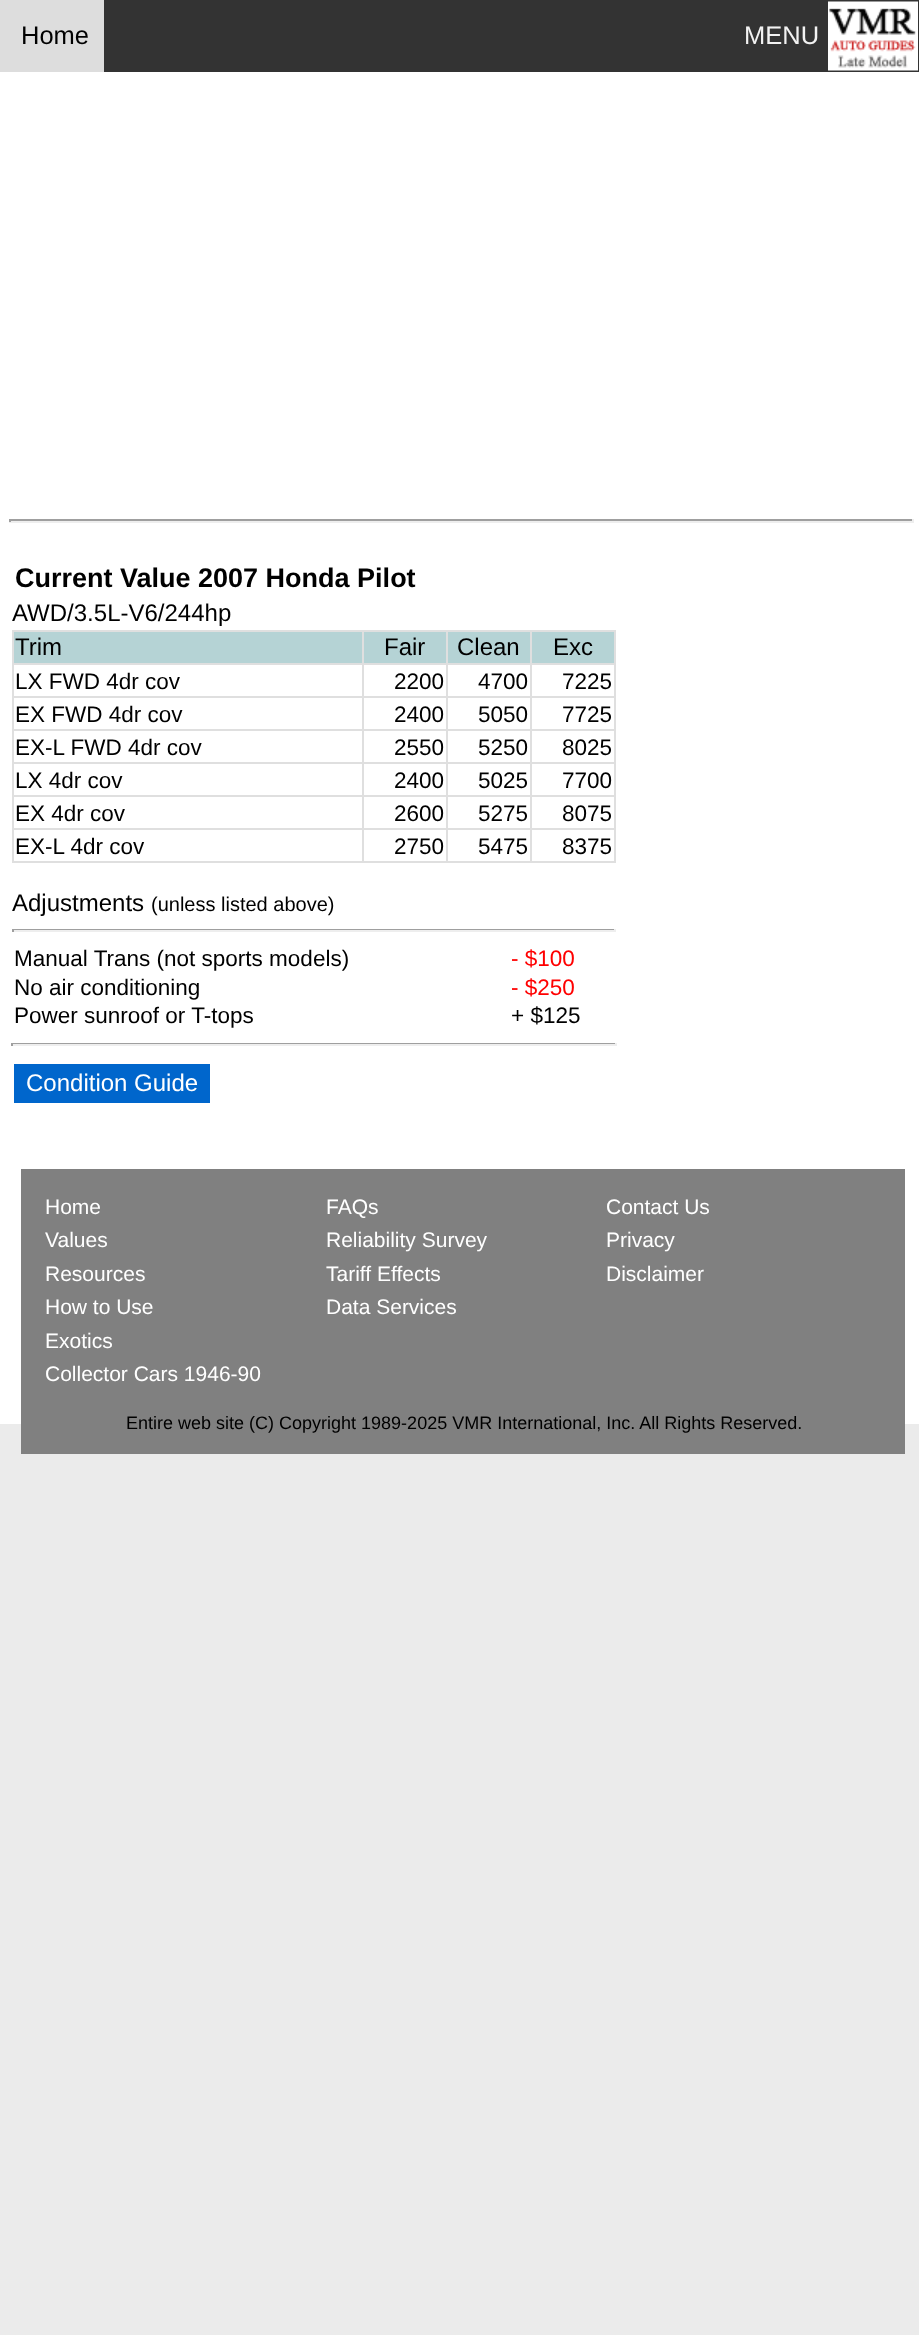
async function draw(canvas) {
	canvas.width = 919;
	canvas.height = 2335;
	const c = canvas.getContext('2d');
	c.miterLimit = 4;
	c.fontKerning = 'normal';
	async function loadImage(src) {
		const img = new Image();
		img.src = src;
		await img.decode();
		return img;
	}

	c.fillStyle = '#ebebeb';
	c.fillRect(0, 0, 919, 2335);
	c.fillStyle = '#333';
	c.fillRect(104, 0, 815, 72);
	c.fillStyle = '#ddd';
	c.fillRect(0, 0, 104, 72);
	c.font = '25.5px Liberation Sans';
	c.fillStyle = '#000';
	c.fillText('Home', 21, 44);
	c.fillStyle = '#f2f2f2';
	c.fillText('MENU', 744, 44);
	c.drawImage(await loadImage('img1.png'), 828, 1, 90, 70);
	for (const [x, y, w, h, color] of [
		[0, 72, 919, 1352, '#fff'],
		[9, 519, 905, 2, '#9f9f9f'],
		[912, 519, 2, 3, '#eee'],
		[9, 521, 905, 2, '#eee'],
		[9, 519, 2, 3, '#9f9f9f'],
	]) {
		c.fillStyle = color;
		c.fillRect(x, y, w, h);
	}
	c.font = 'bold 27px Liberation Sans';
	c.fillStyle = '#000';
	c.fillText('Current Value 2007 Honda Pilot', 15, 587);
	c.font = '24px Liberation Sans';
	c.fillText('AWD/3.5L-V6/244hp', 12, 621);
	for (const [x, y, w, h, color] of [
		[14, 632, 348, 31, '#b5d3d5'],
		[530, 630, 85, 2, '#dfdfdf'],
		[530, 663, 85, 2, '#dfdfdf'],
		[530, 696, 85, 2, '#dfdfdf'],
		[530, 729, 85, 2, '#dfdfdf'],
		[530, 762, 85, 2, '#dfdfdf'],
		[530, 795, 85, 2, '#dfdfdf'],
		[530, 828, 85, 2, '#dfdfdf'],
		[614, 828, 2, 35, '#dfdfdf'],
		[530, 861, 85, 2, '#dfdfdf'],
		[530, 828, 2, 35, '#dfdfdf'],
		[446, 828, 85, 2, '#dfdfdf'],
		[530, 795, 2, 35, '#dfdfdf'],
		[446, 795, 85, 2, '#dfdfdf'],
		[530, 762, 2, 35, '#dfdfdf'],
		[446, 762, 85, 2, '#dfdfdf'],
		[530, 729, 2, 35, '#dfdfdf'],
		[446, 729, 85, 2, '#dfdfdf'],
		[530, 696, 2, 35, '#dfdfdf'],
		[446, 696, 85, 2, '#dfdfdf'],
		[530, 663, 2, 35, '#dfdfdf'],
		[446, 663, 85, 2, '#dfdfdf'],
		[530, 630, 2, 35, '#dfdfdf'],
		[446, 630, 85, 2, '#dfdfdf'],
		[446, 861, 85, 2, '#dfdfdf'],
		[446, 828, 2, 35, '#dfdfdf'],
		[362, 828, 85, 2, '#dfdfdf'],
		[446, 795, 2, 35, '#dfdfdf'],
		[362, 795, 85, 2, '#dfdfdf'],
		[446, 762, 2, 35, '#dfdfdf'],
		[362, 762, 85, 2, '#dfdfdf'],
		[446, 729, 2, 35, '#dfdfdf'],
		[362, 729, 85, 2, '#dfdfdf'],
		[446, 696, 2, 35, '#dfdfdf'],
		[362, 696, 85, 2, '#dfdfdf'],
		[446, 663, 2, 35, '#dfdfdf'],
		[362, 663, 85, 2, '#dfdfdf'],
		[446, 630, 2, 35, '#dfdfdf'],
		[362, 630, 85, 2, '#dfdfdf'],
		[362, 861, 85, 2, '#dfdfdf'],
		[362, 828, 2, 35, '#dfdfdf'],
		[12, 828, 351, 2, '#dfdfdf'],
		[362, 795, 2, 35, '#dfdfdf'],
		[12, 795, 351, 2, '#dfdfdf'],
		[362, 762, 2, 35, '#dfdfdf'],
		[12, 762, 351, 2, '#dfdfdf'],
		[362, 729, 2, 35, '#dfdfdf'],
		[12, 729, 351, 2, '#dfdfdf'],
		[362, 696, 2, 35, '#dfdfdf'],
		[12, 696, 351, 2, '#dfdfdf'],
		[362, 663, 2, 35, '#dfdfdf'],
		[12, 663, 351, 2, '#dfdfdf'],
		[362, 630, 2, 35, '#dfdfdf'],
		[12, 630, 351, 2, '#dfdfdf'],
		[12, 861, 351, 2, '#dfdfdf'],
		[12, 828, 2, 35, '#dfdfdf'],
		[12, 795, 2, 35, '#dfdfdf'],
		[12, 762, 2, 35, '#dfdfdf'],
		[12, 729, 2, 35, '#dfdfdf'],
		[12, 696, 2, 35, '#dfdfdf'],
		[12, 663, 2, 35, '#dfdfdf'],
		[12, 630, 2, 35, '#dfdfdf'],
	]) {
		c.fillStyle = color;
		c.fillRect(x, y, w, h);
	}
	c.fillStyle = '#000';
	c.fillText('Trim', 15, 655);
	c.fillStyle = '#b5d3d5';
	c.fillRect(364, 632, 82, 31);
	c.fillStyle = '#000';
	c.fillText('Fair', 384, 655);
	c.fillStyle = '#b5d3d5';
	c.fillRect(448, 632, 82, 31);
	c.fillStyle = '#000';
	c.fillText('Clean', 457, 655);
	for (const [x, y, w, h, color] of [
		[532, 632, 82, 31, '#b5d3d5'],
		[614, 795, 2, 35, '#dfdfdf'],
		[614, 762, 2, 35, '#dfdfdf'],
		[614, 729, 2, 35, '#dfdfdf'],
		[614, 696, 2, 35, '#dfdfdf'],
		[614, 663, 2, 35, '#dfdfdf'],
		[614, 630, 2, 35, '#dfdfdf'],
	]) {
		c.fillStyle = color;
		c.fillRect(x, y, w, h);
	}
	c.fillStyle = '#000';
	c.fillText('Exc', 553, 655);
	c.font = '22.5px Liberation Sans';
	for (const [text, x, y] of [
		['LX FWD 4dr cov', 15, 689],
		['2200', 394, 689],
		['4700', 478, 689],
		['7225', 562, 689],
		['EX FWD 4dr cov', 15, 722],
		['2400', 394, 722],
		['5050', 478, 722],
		['7725', 562, 722],
		['EX-L FWD 4dr cov', 15, 755],
		['2550', 394, 755],
		['5250', 478, 755],
		['8025', 562, 755],
		['LX 4dr cov', 15, 788],
		['2400', 394, 788],
		['5025', 478, 788],
		['7700', 562, 788],
		['EX 4dr cov', 15, 821],
		['2600', 394, 821],
		['5275', 478, 821],
		['8075', 562, 821],
		['EX-L 4dr cov', 15, 854],
		['2750', 394, 854],
		['5475', 478, 854],
		['8375', 562, 854],
	]) {
		c.fillText(text, x, y);
	}
	c.font = '24px Liberation Sans';
	c.fillText('Adjustments', 12, 911);
	c.font = '20px Liberation Sans';
	c.fillText('(unless listed above)', 151, 911);
	for (const [x, y, w, h, color] of [
		[12, 929, 603, 1, '#9f9f9f'],
		[614, 929, 2, 3, '#eee'],
		[12, 930, 603, 2, '#eee'],
		[12, 929, 2, 3, '#9f9f9f'],
	]) {
		c.fillStyle = color;
		c.fillRect(x, y, w, h);
	}
	c.font = '22.5px Liberation Sans';
	c.fillStyle = '#000';
	c.fillText('Manual Trans (not sports models)', 14, 966);
	c.fillStyle = '#f00';
	c.fillText('- $100', 511, 966);
	c.fillStyle = '#000';
	c.fillText('No air conditioning', 14, 995);
	c.fillStyle = '#f00';
	c.fillText('- $250', 511, 995);
	c.fillStyle = '#000';
	c.fillText('Power sunroof or T-tops', 14, 1023);
	c.fillText('+ $125', 511, 1023);
	for (const [x, y, w, h, color] of [
		[11, 1043, 606, 1, '#9f9f9f'],
		[615, 1043, 2, 3, '#eee'],
		[11, 1044, 606, 2, '#eee'],
		[11, 1043, 2, 3, '#9f9f9f'],
		[14, 1064, 196, 39, '#06c'],
	]) {
		c.fillStyle = color;
		c.fillRect(x, y, w, h);
	}
	c.font = '24px Liberation Sans';
	c.fillStyle = '#fff';
	c.fillText('Condition Guide', 26, 1091);
	c.fillStyle = '#808080';
	c.fillRect(21, 1169, 884, 285);
	c.font = '21px Liberation Sans';
	c.fillStyle = '#fff';
	for (const [text, x, y] of [
		['Home', 45, 1214],
		['Values', 45, 1247],
		['Resources', 45, 1281],
		['How to Use', 45, 1314],
		['Exotics', 45, 1348],
		['Collector Cars 1946-90', 45, 1381],
		['FAQs', 326, 1214],
		['Reliability Survey', 326, 1247],
		['Tariff Effects', 326, 1281],
		['Data Services', 326, 1314],
		['Contact Us', 606, 1214],
		['Privacy', 606, 1247],
		['Disclaimer', 606, 1281],
	]) {
		c.fillText(text, x, y);
	}
	c.font = '18px Liberation Sans';
	c.fillStyle = '#000';
	c.fillText('Entire web site (C) Copyright 1989-2025 VMR International, Inc. All Rights Reserved.', 126, 1429);
}

draw(document.querySelector('canvas'));
